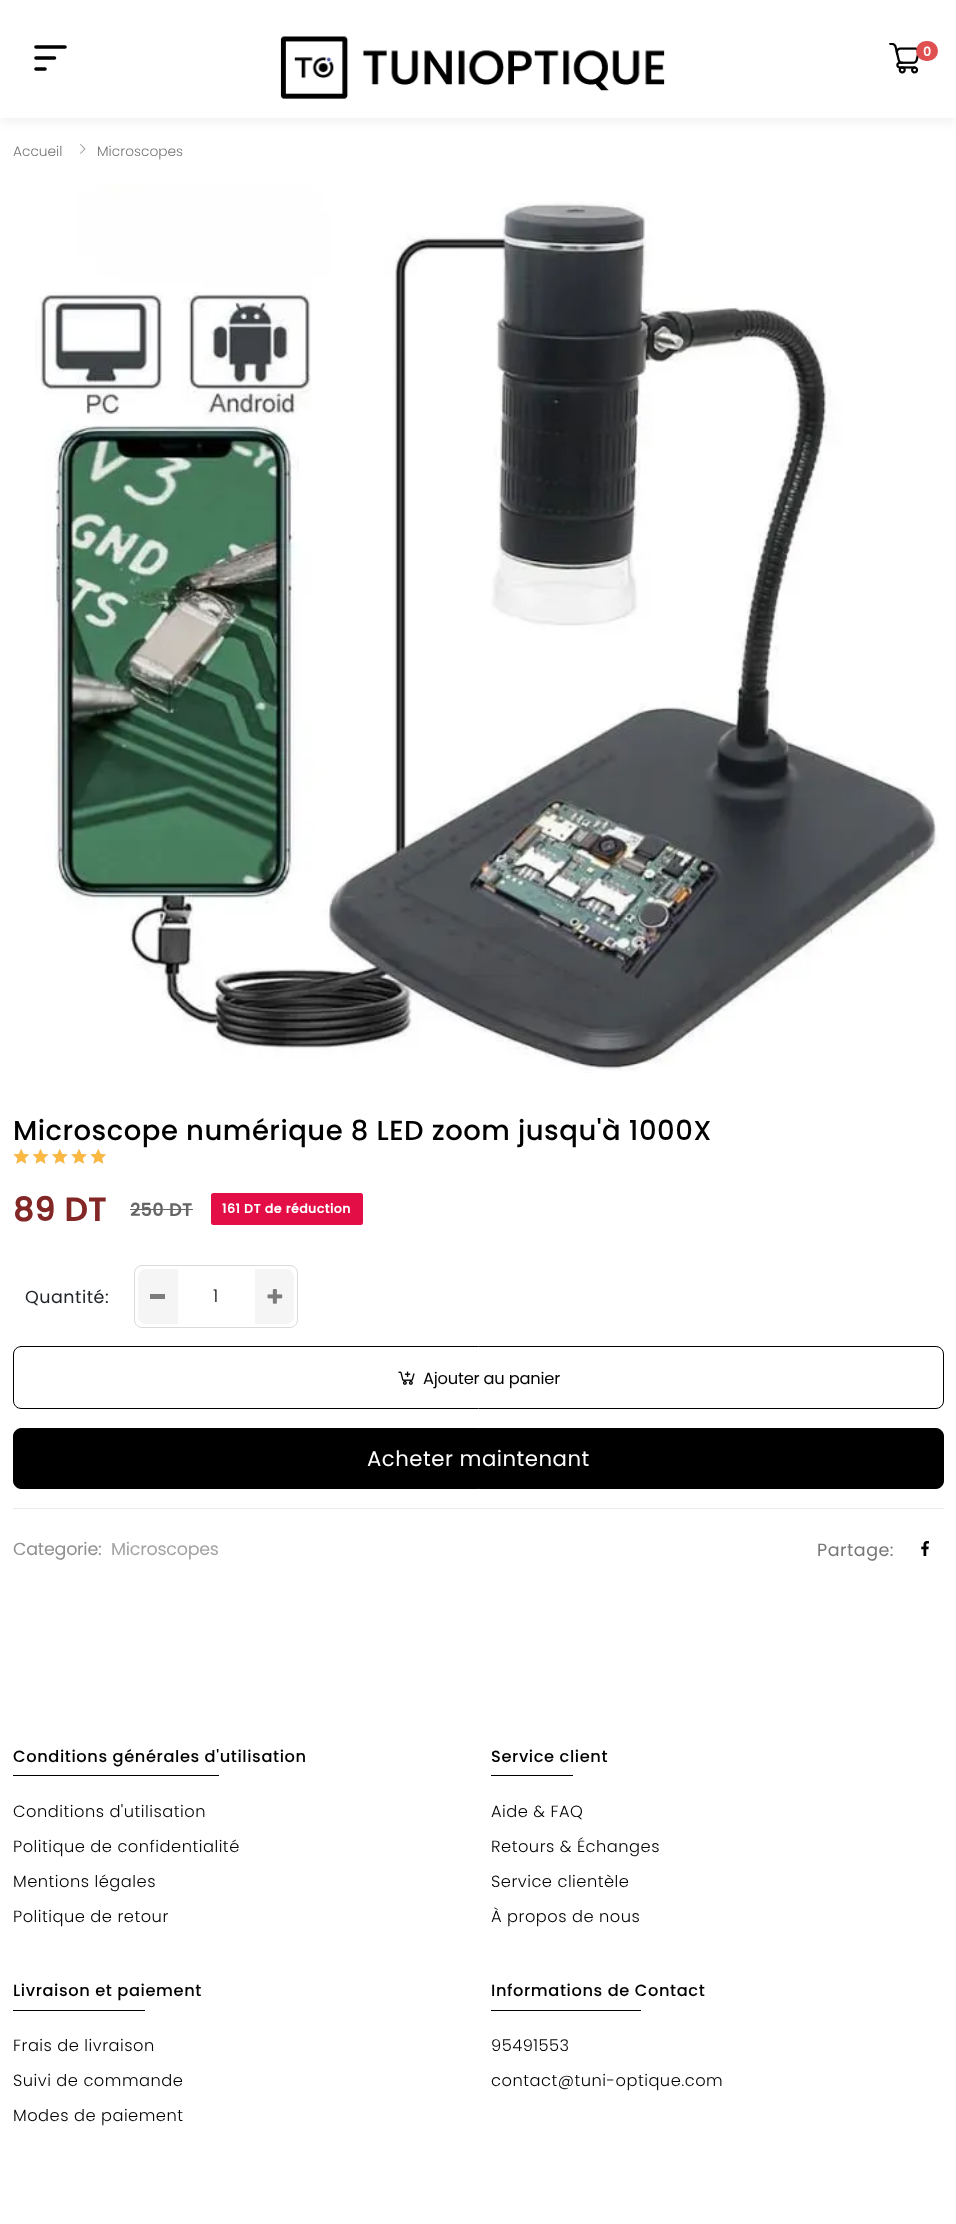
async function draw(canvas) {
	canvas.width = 956;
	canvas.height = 2224;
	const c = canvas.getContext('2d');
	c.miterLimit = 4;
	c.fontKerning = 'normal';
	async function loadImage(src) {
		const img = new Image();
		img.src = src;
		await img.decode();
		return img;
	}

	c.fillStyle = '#fff';
	c.fillRect(0, 0, 956, 2224);
	c.fillStyle = '#90909026';
	c.filter = 'blur(6px)';
	c.beginPath();
	c.rect(0, 4, 956, 117);
	c.fill();
	c.filter = 'none';
	c.fillStyle = '#fff';
	c.fillRect(0, 0, 956, 118);
	c.beginPath();
	c.moveTo(36, 47);
	c.lineTo(65, 47);
	c.moveTo(36, 58);
	c.lineTo(54.5, 58);
	c.moveTo(36, 69);
	c.lineTo(45, 69);
	c.strokeStyle = '#000';
	c.lineWidth = 3.6;
	c.lineCap = 'round';
	c.lineJoin = 'round';
	c.stroke();
	c.drawImage(await loadImage('img1.png'), 280, 36, 385, 63);
	c.drawImage(await loadImage('img2.png'), 889, 43, 30, 31);
	c.fillStyle = '#e05050';
	c.beginPath();
	c.roundRect(916, 41, 22, 20, 10);
	c.fill();
	c.letterSpacing = '0.5px';
	c.font = 'bold 12.5px Poppins';
	c.fillStyle = '#fff';
	c.fillText('0', 923, 56);
	c.letterSpacing = '0px';
	c.font = '300 13.75px Poppins';
	c.fillStyle = '#777';
	c.fillText('Accueil', 13, 156);
	c.drawImage(await loadImage('img3.png'), 80, 144, 6, 10);
	c.fillText('Microscopes', 97, 156);
	c.drawImage(await loadImage('img4.png'), 35, 183, 904, 890);
	c.letterSpacing = '0.5px';
	c.font = '500 27.5px Poppins';
	c.fillStyle = '#000';
	c.fillText('Microscope numérique 8 LED zoom jusqu\'à 1000X', 13, 1140);
	c.drawImage(await loadImage('img5.png'), 13, 1149, 93, 15);
	c.drawImage(await loadImage('img6.png'), 13, 1149, 93, 15);
	c.font = 'bold 32.5px Poppins';
	c.fillStyle = '#822626';
	c.fillText('89 DT', 13, 1221);
	c.font = 'bold 17.5px Poppins';
	c.fillStyle = '#666';
	c.fillText('250 DT', 130, 1216);
	c.fillRect(130, 1209, 63, 1);
	c.fillStyle = '#e40e47';
	c.beginPath();
	c.roundRect(211, 1193, 152, 32, 2.5);
	c.fill();
	c.font = 'bold 12.5px Poppins';
	c.fillStyle = '#fff';
	c.fillText('161 DT de réduction', 222, 1213);
	c.font = '17.5px Poppins';
	c.fillStyle = '#212529';
	c.fillText('Quantité:', 25, 1303);
	c.beginPath();
	c.roundRect(134.5, 1265.5, 163, 62, 7.5);
	c.strokeStyle = '#dadada';
	c.lineWidth = 1;
	c.lineJoin = 'miter';
	c.stroke();
	c.fillStyle = '#f5f5f5';
	c.beginPath();
	c.roundRect(138, 1269, 40, 55, [8, 0, 0, 8]);
	c.fill();
	c.fillStyle = '#7c7c7c';
	c.fillRect(150, 1294, 15, 5);
	c.letterSpacing = '0px';
	c.font = '300 17.5px Poppins';
	c.fillStyle = '#000';
	c.fillText('1', 213, 1302);
	c.fillStyle = '#f5f5f5';
	c.beginPath();
	c.roundRect(255, 1269, 39, 55, [0, 8, 8, 0]);
	c.fill();
	c.drawImage(await loadImage('img7.png'), 267, 1289, 16, 15);
	c.beginPath();
	c.roundRect(13.5, 1346.5, 930, 62, 7.5);
	c.strokeStyle = '#000';
	c.stroke();
	c.drawImage(await loadImage('img8.png'), 398, 1371, 17, 14);
	c.letterSpacing = '-0.2px';
	c.font = '16.25px Poppins';
	c.fillStyle = '#000';
	c.fillText('Ajouter au panier', 423, 1384);
	c.beginPath();
	c.roundRect(13.5, 1428.5, 930, 60, 7.5);
	c.fill();
	c.stroke();
	c.letterSpacing = '0.5px';
	c.font = '21.25px Poppins';
	c.fillStyle = '#fff';
	c.fillText('Acheter maintenant', 367, 1466);
	c.fillStyle = '#ebebeb';
	c.fillRect(13, 1508, 931, 1);
	c.letterSpacing = '-0.25px';
	c.font = '17.5px Poppins';
	c.fillStyle = '#909090';
	c.fillText('Categorie:', 13, 1555);
	c.fillStyle = '#a3a3a3';
	c.fillText('Microscopes', 111, 1555);
	c.letterSpacing = '0.5px';
	c.fillStyle = '#777';
	c.fillText('Partage:', 817, 1556);
	c.drawImage(await loadImage('img9.png'), 921, 1541, 8, 15);
	c.letterSpacing = '0.6px';
	c.font = '500 16.25px Poppins';
	c.fillStyle = '#000';
	c.fillText('Conditions générales d\'utilisation', 13, 1762);
	c.fillRect(13, 1775, 206, 1);
	c.letterSpacing = '0.5px';
	c.font = '300 16.25px Poppins';
	for (const [text, x, y] of [
		['Conditions d\'utilisation', 13, 1817],
		['Politique de confidentialité', 13, 1852],
		['Mentions légales', 13, 1887],
		['Politique de retour', 13, 1922],
	]) {
		c.fillText(text, x, y);
	}
	c.letterSpacing = '0.6px';
	c.font = '500 16.25px Poppins';
	c.fillText('Service client', 491, 1762);
	c.fillRect(491, 1775, 82, 1);
	c.letterSpacing = '0.5px';
	c.font = '300 16.25px Poppins';
	for (const [text, x, y] of [
		['Aide & FAQ', 491, 1817],
		['Retours & Échanges', 491, 1852],
		['Service clientèle', 491, 1887],
		['À propos de nous', 491, 1922],
	]) {
		c.fillText(text, x, y);
	}
	c.letterSpacing = '0.6px';
	c.font = '500 16.25px Poppins';
	c.fillText('Livraison et paiement', 13, 1996);
	c.fillRect(13, 2010, 132, 1);
	c.letterSpacing = '0.5px';
	c.font = '300 16.25px Poppins';
	for (const [text, x, y] of [
		['Frais de livraison', 13, 2051],
		['Suivi de commande', 13, 2086],
		['Modes de paiement', 13, 2121],
	]) {
		c.fillText(text, x, y);
	}
	c.letterSpacing = '0.6px';
	c.font = '500 16.25px Poppins';
	c.fillText('Informations de Contact', 491, 1996);
	c.fillRect(491, 2010, 150, 1);
	c.letterSpacing = '0.5px';
	c.font = '300 16.25px Poppins';
	c.fillText('95491553', 491, 2051);
	c.fillText('contact@tuni-optique.com', 491, 2086);
}

draw(document.querySelector('canvas'));
